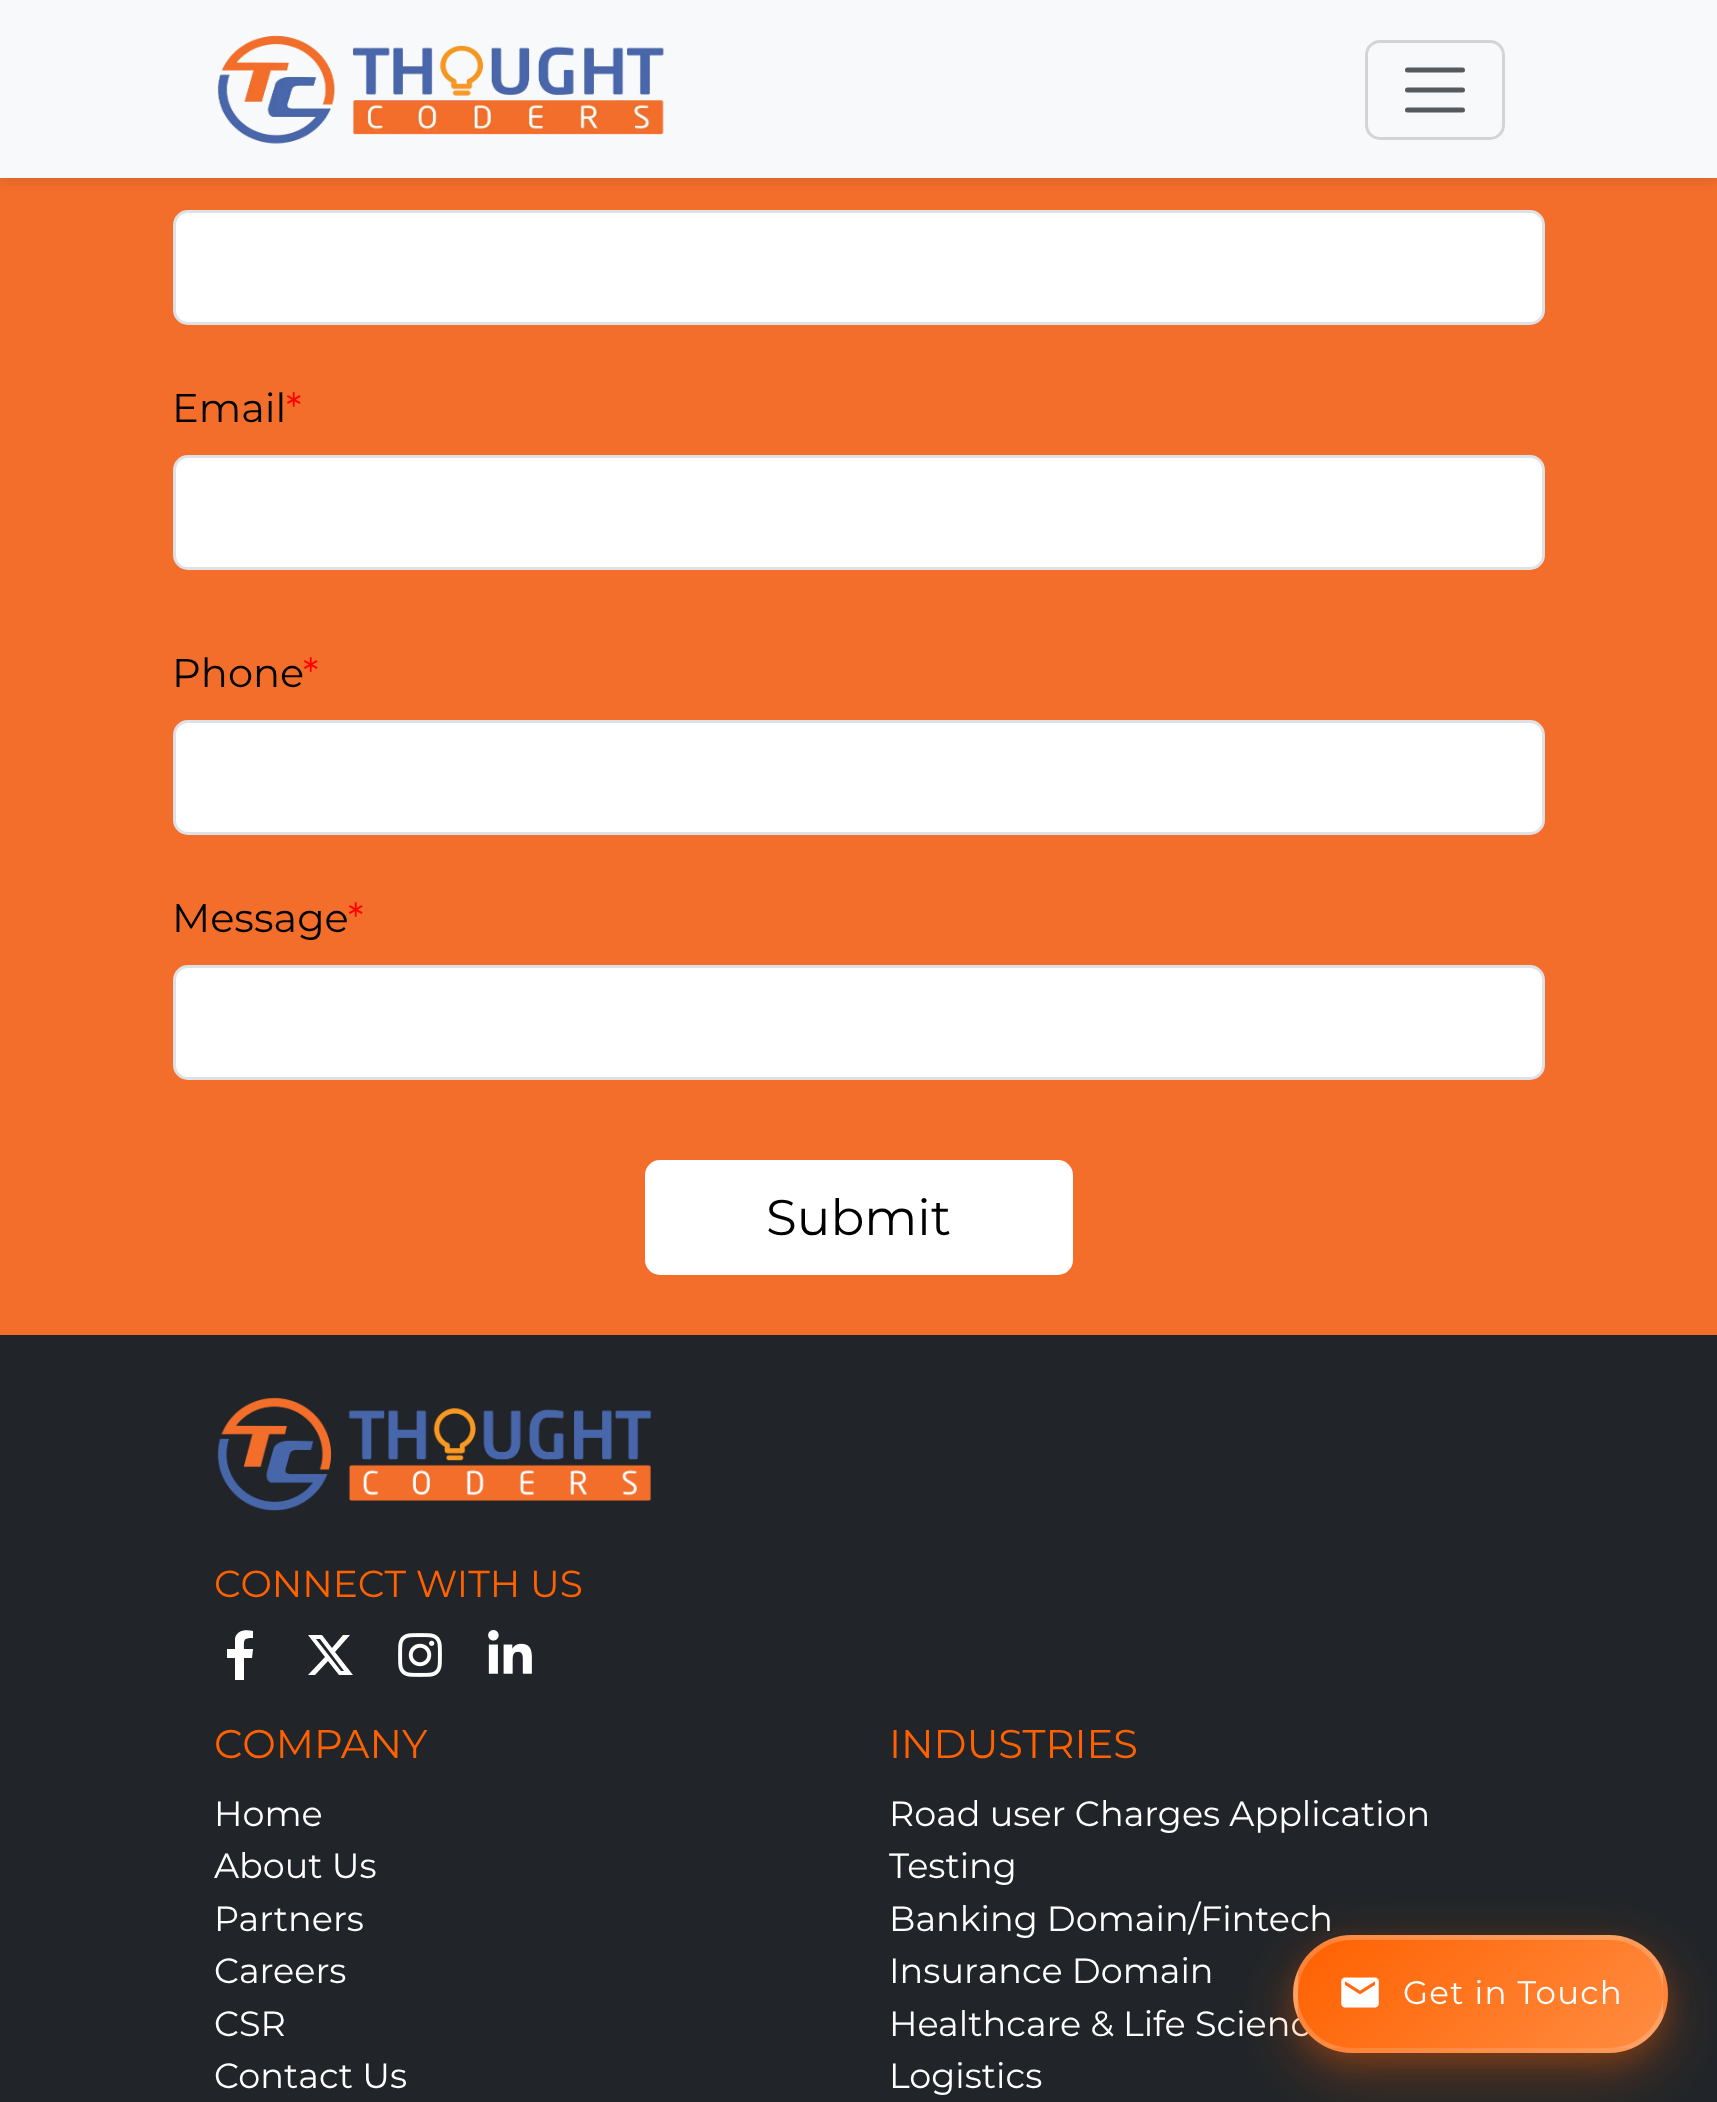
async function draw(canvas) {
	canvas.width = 1717;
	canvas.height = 2102;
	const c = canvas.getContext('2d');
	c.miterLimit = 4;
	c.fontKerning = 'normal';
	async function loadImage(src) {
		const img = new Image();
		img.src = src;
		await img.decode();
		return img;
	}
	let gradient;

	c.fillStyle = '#f36e2b';
	c.fillRect(0, 0, 1717, 2102);
	c.fillStyle = '#00000012';
	c.filter = 'blur(5px)';
	c.beginPath();
	c.rect(0, 5, 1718, 178);
	c.fill();
	c.filter = 'none';
	c.fillStyle = '#f8f9fa';
	c.fillRect(0, 0, 1717, 178);
	c.drawImage(await loadImage('img1.png'), 217, 35, 447, 109);
	c.beginPath();
	c.roundRect(1366.5, 41.5, 137, 97, 13.5);
	c.strokeStyle = '#d3d4d5';
	c.lineWidth = 3;
	c.stroke();
	c.beginPath();
	c.moveTo(1407.5, 70);
	c.lineTo(1462.5, 70);
	c.moveTo(1407.5, 90);
	c.lineTo(1462.5, 90);
	c.moveTo(1407.5, 110);
	c.lineTo(1462.5, 110);
	c.strokeStyle = '#575a5d';
	c.lineWidth = 5;
	c.lineCap = 'round';
	c.stroke();
	c.fillStyle = '#fff';
	c.beginPath();
	c.roundRect(174.5, 211.5, 1369, 112, 13.5);
	c.fill();
	c.strokeStyle = '#dee2e6';
	c.lineWidth = 3;
	c.stroke();
	c.font = '40px Montserrat';
	c.fillStyle = '#000';
	c.fillText('Email', 172, 422);
	c.fillStyle = '#f00';
	c.fillText('*', 286, 422);
	c.fillStyle = '#fff';
	c.beginPath();
	c.roundRect(174.5, 456.5, 1369, 112, 13.5);
	c.fill();
	c.stroke();
	c.fillStyle = '#000';
	c.fillText('Phone', 172, 687);
	c.fillStyle = '#f00';
	c.fillText('*', 303, 687);
	c.fillStyle = '#fff';
	c.beginPath();
	c.roundRect(174.5, 721.5, 1369, 112, 13.5);
	c.fill();
	c.stroke();
	c.fillStyle = '#000';
	c.fillText('Message', 172, 932);
	c.fillStyle = '#f00';
	c.fillText('*', 348, 932);
	c.fillStyle = '#fff';
	c.beginPath();
	c.roundRect(174.5, 966.5, 1369, 112, 13.5);
	c.fill();
	c.stroke();
	c.beginPath();
	c.roundRect(645, 1160, 428, 115, 15);
	c.fill();
	c.font = '50px Montserrat';
	c.fillStyle = '#000';
	c.fillText('Submit', 766, 1235);
	c.fillStyle = '#212529';
	c.fillRect(0, 1335, 1717, 767);
	c.drawImage(await loadImage('img2.png'), 217, 1397, 435, 114);
	c.font = '37.5px Montserrat';
	c.fillStyle = '#ff6100';
	c.fillText('CONNECT WITH US', 214, 1597);
	c.fillStyle = '#fff';
	c.beginPath();
	c.moveTo(252, 1658);
	c.lineTo(253, 1649);
	c.lineTo(244, 1649);
	c.bezierCurveTo(244, 1640, 243, 1638, 253, 1638);
	c.lineTo(253, 1631);
	c.bezierCurveTo(246, 1629, 236, 1630, 235, 1639);
	c.lineTo(235, 1649);
	c.lineTo(227, 1649);
	c.lineTo(227, 1658);
	c.lineTo(235, 1658);
	c.lineTo(235, 1680);
	c.lineTo(244, 1680);
	c.lineTo(244, 1658);
	c.closePath();
	c.fill();
	c.beginPath();
	c.moveTo(343, 1635);
	c.lineTo(350, 1635);
	c.lineTo(335, 1652);
	c.lineTo(353, 1675);
	c.lineTo(339, 1675);
	c.lineTo(328, 1661);
	c.lineTo(315, 1675);
	c.lineTo(308, 1675);
	c.lineTo(325, 1657);
	c.lineTo(308, 1635);
	c.lineTo(322, 1635);
	c.lineTo(332, 1648);
	c.closePath();
	c.moveTo(341, 1671);
	c.lineTo(344, 1671);
	c.lineTo(320, 1639);
	c.lineTo(316, 1639);
	c.closePath();
	c.fill();
	c.drawImage(await loadImage('img3.png'), 398, 1633, 44, 44);
	c.drawImage(await loadImage('img4.png'), 488, 1630, 44, 44);
	c.font = '40px Montserrat';
	c.fillStyle = '#ff6100';
	c.fillText('COMPANY', 214, 1758);
	c.font = '35px Montserrat';
	c.fillStyle = '#fff';
	for (const [text, x, y] of [
		['Home', 214, 1826],
		['About Us', 214, 1878],
		['Partners', 214, 1931],
		['Careers', 214, 1983],
		['CSR', 214, 2036],
		['Contact Us', 214, 2088],
	]) {
		c.fillText(text, x, y);
	}
	c.font = '40px Montserrat';
	c.fillStyle = '#ff6100';
	c.fillText('INDUSTRIES', 889, 1758);
	c.font = '35px Montserrat';
	c.fillStyle = '#fff';
	for (const [text, x, y] of [
		['Road user Charges Application', 889, 1826],
		['Testing', 889, 1878],
		['Banking Domain/Fintech', 889, 1931],
		['Insurance Domain', 889, 1983],
		['Healthcare & Life Scienc', 889, 2036],
		['Logistics', 889, 2088],
	]) {
		c.fillText(text, x, y);
	}
	c.fillStyle = '#ff610033';
	c.filter = 'blur(12.5px)';
	c.beginPath();
	c.roundRect(1293, 1945, 375, 118, 59);
	c.fill();
	c.filter = 'none';
	c.fillStyle = '#ff61004d';
	c.filter = 'blur(31px)';
	c.beginPath();
	c.roundRect(1293, 1955, 375, 118, 59);
	c.fill();
	c.filter = 'none';
	c.save();
	c.beginPath();
	c.roundRect(1293, 1935, 375, 118, 59);
	c.clip();
	gradient = c.createLinearGradient(1362, 1768, 1598, 2004);
	gradient.addColorStop(0, '#ff6100');
	gradient.addColorStop(1, '#ff8c42');
	c.fillStyle = gradient;
	c.fillRect(1328, 1935, 305, 5);
	gradient = c.createLinearGradient(997, 1876, 1233, 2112);
	gradient.addColorStop(0, '#ff6100');
	gradient.addColorStop(1, '#ff8c42');
	c.fillStyle = gradient;
	c.fillRect(1293, 1970, 5, 48);
	gradient = c.createLinearGradient(1362, 1876, 1598, 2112);
	gradient.addColorStop(0, '#ff6100');
	gradient.addColorStop(1, '#ff8c42');
	c.fillStyle = gradient;
	c.fillRect(1298, 1940, 365, 108);
	gradient = c.createLinearGradient(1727, 1876, 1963, 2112);
	gradient.addColorStop(0, '#ff6100');
	gradient.addColorStop(1, '#ff8c42');
	c.fillStyle = gradient;
	c.fillRect(1663, 1970, 5, 48);
	gradient = c.createLinearGradient(1362, 1983, 1598, 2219);
	gradient.addColorStop(0, '#ff6100');
	gradient.addColorStop(1, '#ff8c42');
	c.fillStyle = gradient;
	c.fillRect(1328, 2048, 305, 5);
	c.restore();
	c.beginPath();
	c.roundRect(1295.5, 1937.5, 370, 113, 56.5);
	c.strokeStyle = '#ffffff33';
	c.lineWidth = 5;
	c.stroke();
	c.drawImage(await loadImage('img5.png'), 1341, 1977, 38, 31);
	c.letterSpacing = '1.25px';
	c.font = '32.5px Montserrat';
	c.fillStyle = '#fff';
	c.fillText('Get in Touch', 1403, 2004);
}

draw(document.querySelector('canvas'));
